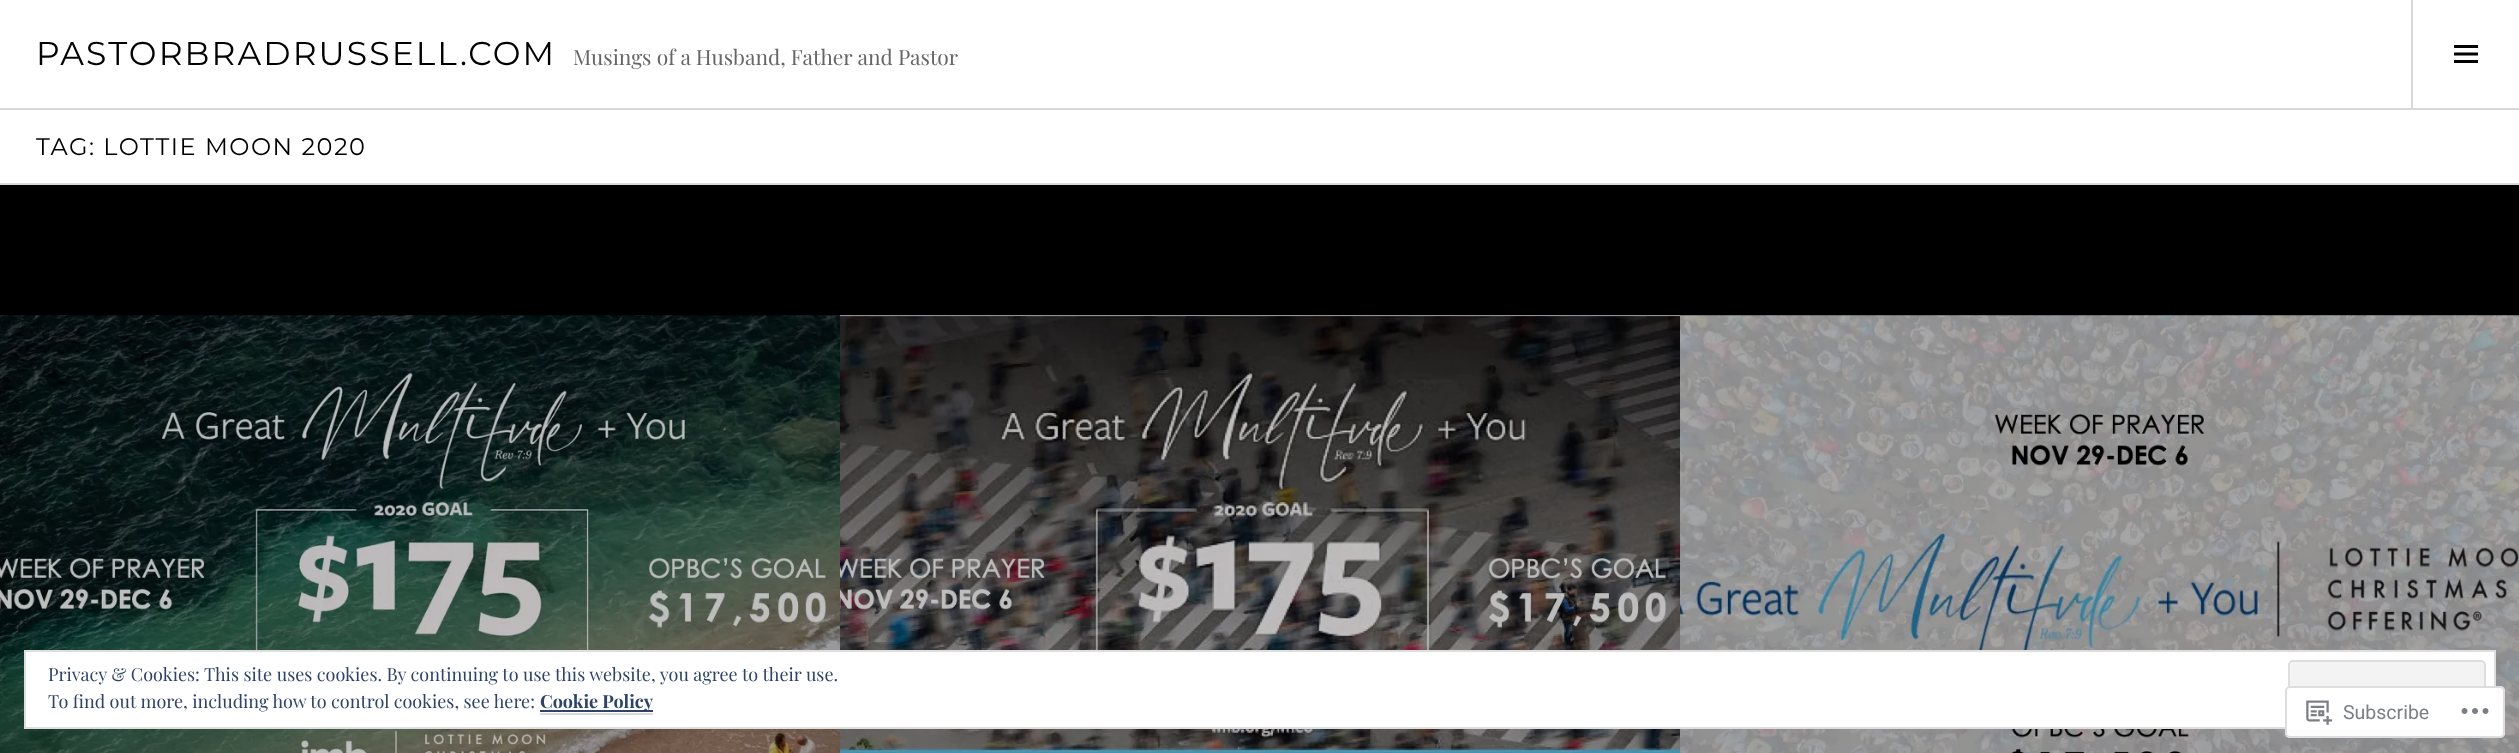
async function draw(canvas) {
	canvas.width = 2519;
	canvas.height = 753;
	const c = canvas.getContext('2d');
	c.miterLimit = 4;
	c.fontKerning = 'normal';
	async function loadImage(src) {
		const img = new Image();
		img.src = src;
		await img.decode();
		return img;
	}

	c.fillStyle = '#fff';
	c.fillRect(0, 0, 2519, 753);
	c.fillStyle = '#d9d9d9';
	c.fillRect(0, 108, 2519, 2);
	c.letterSpacing = '2.1px';
	c.font = '33px Montserrat';
	c.fillStyle = '#000';
	c.fillText('PASTORBRADRUSSELL.COM', 36, 65);
	c.letterSpacing = '0px';
	c.font = '21px Playfair Display';
	c.fillStyle = '#666';
	c.fillText('Musings of a Husband, Father and Pastor', 573, 65);
	c.fillStyle = '#d9d9d9';
	c.fillRect(2411, 0, 2, 108);
	c.drawImage(await loadImage('img1.png'), 2454, 45, 24, 18);
	c.fillRect(0, 183, 2519, 2);
	c.letterSpacing = '1.5px';
	c.font = '24px Montserrat';
	c.fillStyle = '#000';
	c.fillText('TAG: LOTTIE MOON 2020', 36, 155);
	c.fillRect(0, 185, 2519, 568);
	c.drawImage(await loadImage('img2.png'), 0, 315, 840, 438);
	c.drawImage(await loadImage('img3.png'), 840, 315, 840, 438);
	c.drawImage(await loadImage('img4.png'), 1680, 315, 839, 438);
	c.fillStyle = '#fff';
	c.beginPath();
	c.rect(25, 651, 2470, 77);
	c.fill();
	c.strokeStyle = '#dedede';
	c.lineWidth = 2;
	c.stroke();
	c.letterSpacing = '0px';
	c.font = '18px Playfair Display';
	c.fillStyle = '#2e4467';
	c.fillText('Privacy & Cookies: This site uses cookies. By continuing to use this website, you agree to their use.', 48, 681);
	c.fillStyle = '#f3f3f3';
	c.beginPath();
	c.roundRect(2289, 661, 196, 57, 4);
	c.fill();
	c.stroke();
	c.fillStyle = '#2e4467';
	c.fillText('To find out more, including how to control cookies, see here:', 48, 708);
	c.fillRect(540, 710, 113, 2);
	c.font = 'bold 18px Playfair Display';
	c.fillText('Cookie Policy', 540, 708);
	c.fillStyle = '#d9d9d9';
	c.fillRect(540, 713, 113, 2);
	c.fillStyle = '#fffffffa';
	c.beginPath();
	c.roundRect(2285, 686, 220, 52, 5);
	c.fill();
	c.beginPath();
	c.roundRect(2286, 687, 218, 50, 4);
	c.strokeStyle = '#dcdcdefa';
	c.stroke();
	c.drawImage(await loadImage('img5.png'), 2306, 700, 27, 25);
	c.font = '19.5px Roboto';
	c.fillStyle = '#7b7f84';
	c.fillText('Subscribe', 2343, 719);
	c.drawImage(await loadImage('img6.png'), 2461, 708, 28, 6);
}

draw(document.querySelector('canvas'));
